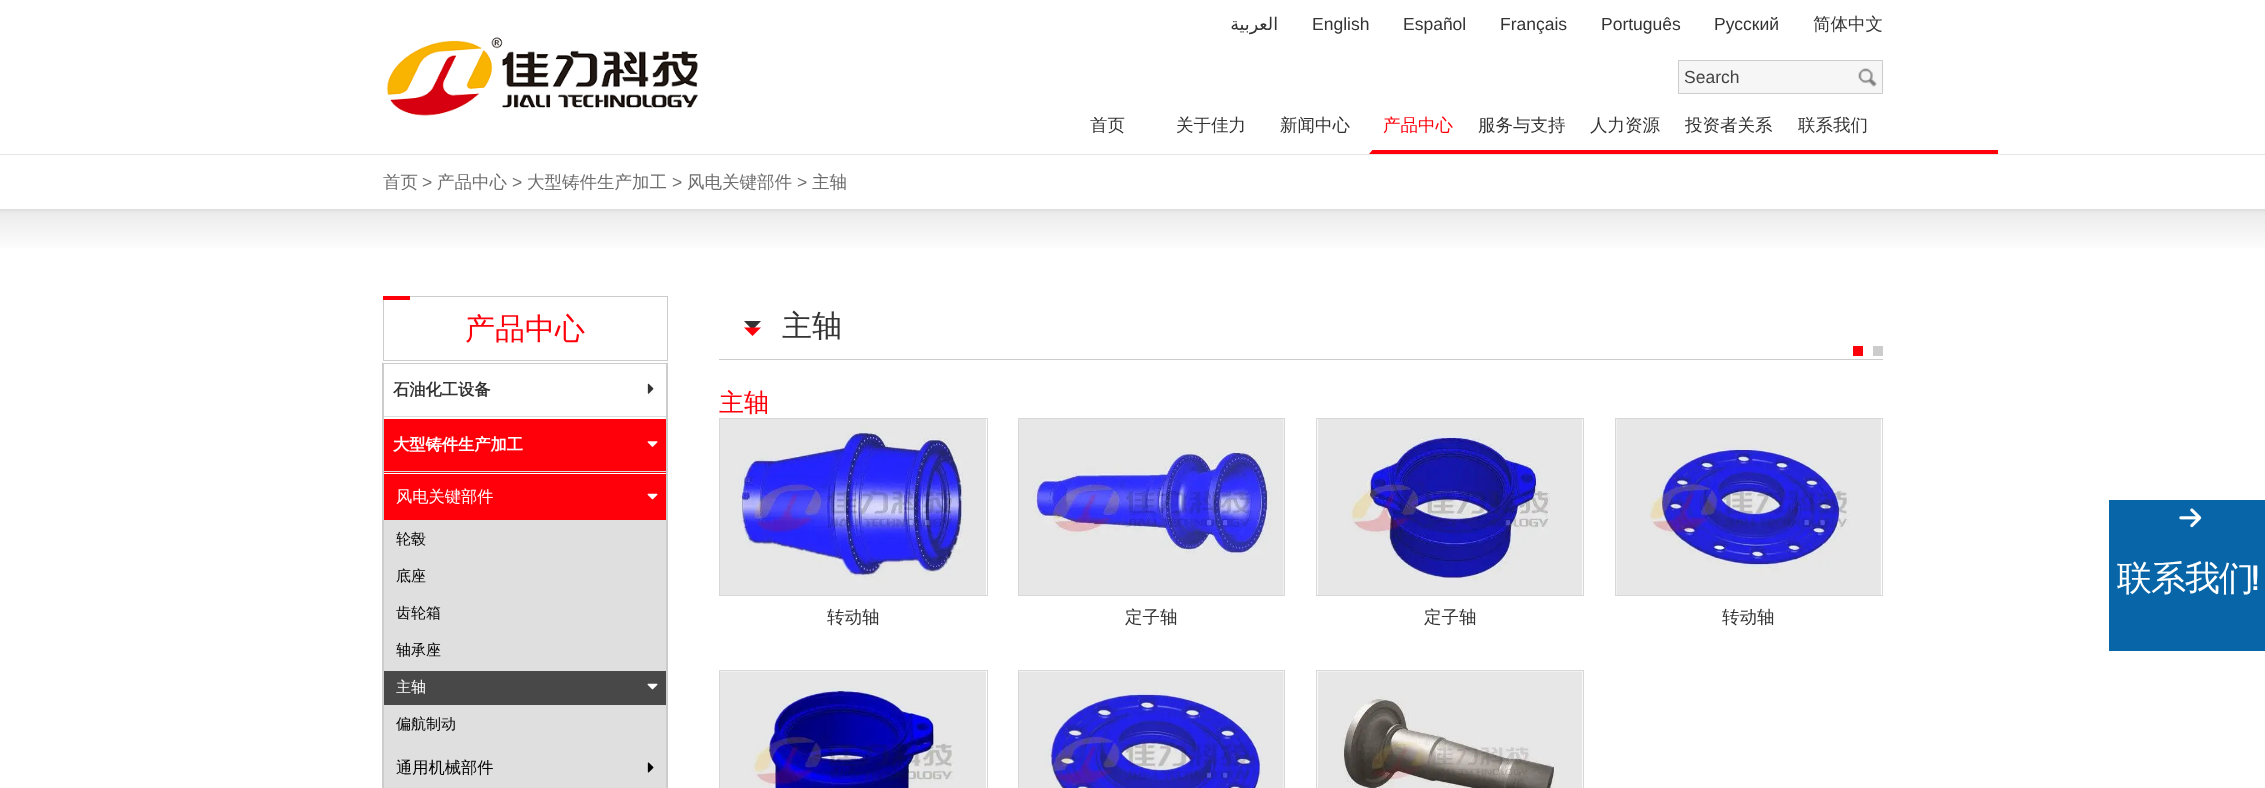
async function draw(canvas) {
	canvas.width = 2265;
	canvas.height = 788;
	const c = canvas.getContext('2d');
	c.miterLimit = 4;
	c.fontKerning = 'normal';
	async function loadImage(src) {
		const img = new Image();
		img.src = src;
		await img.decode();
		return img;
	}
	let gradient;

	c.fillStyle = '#fff';
	c.fillRect(0, 0, 2265, 788);
	c.fillStyle = '#e5e5e5';
	c.fillRect(0, 154, 2265, 1);
	c.drawImage(await loadImage('img1.png'), 386, 37, 312, 79);
	c.direction = 'rtl';
	c.font = '17.5px DejaVu Sans';
	c.fillStyle = '#333';
	c.fillText('العربية', 1278, 30);
	c.direction = 'ltr';
	c.font = '17.5px Liberation Sans';
	for (const [text, x, y] of [
		['English', 1312, 30],
		['Español', 1403, 30],
		['Français', 1500, 30],
		['Português', 1601, 30],
		['Pусский', 1714, 30],
	]) {
		c.fillText(text, x, y);
	}
	c.font = '500 17.5px WenQuanYi Zen Hei';
	c.fillText('简体中文', 1813, 30);
	c.fillStyle = '#f6f6f6';
	c.beginPath();
	c.rect(1678.5, 60.5, 204, 33);
	c.fill();
	c.strokeStyle = '#ccc';
	c.stroke();
	c.font = '17.5px Liberation Sans';
	c.fillStyle = '#444';
	c.fillText('Search', 1684, 83);
	c.drawImage(await loadImage('img2.png'), 1858, 68, 19, 19);
	c.font = '500 17.5px WenQuanYi Zen Hei';
	c.fillStyle = '#333';
	for (const [text, x, y] of [
		['首页', 1090, 131],
		['关于佳力', 1176, 131],
		['新闻中心', 1280, 131],
	]) {
		c.fillText(text, x, y);
	}
	c.fillStyle = '#ff000b';
	c.fillText('产品中心', 1383, 131);
	c.fillStyle = '#333';
	for (const [text, x, y] of [
		['服务与支持', 1478, 131],
		['人力资源', 1590, 131],
		['投资者关系', 1685, 131],
		['联系我们', 1798, 131],
	]) {
		c.fillText(text, x, y);
	}
	c.fillStyle = '#ff000b';
	c.fillRect(1369, 150, 629, 4);
	c.save();
	c.beginPath();
	c.rect(1369, 150, 629, 4);
	c.clip();
	c.fillStyle = '#fff';
	c.beginPath();
	c.moveTo(1365, 150);
	c.lineTo(1372.5, 150);
	c.lineTo(1369, 154);
	c.closePath();
	c.fill();
	c.restore();
	c.fillStyle = '#6e6e6e';
	c.fillText('首页', 383, 188);
	c.font = '17.5px Liberation Sans';
	c.fillText('>', 422, 188);
	c.font = '500 17.5px WenQuanYi Zen Hei';
	c.fillText('产品中心', 437, 188);
	c.font = '17.5px Liberation Sans';
	c.fillText('>', 512, 188);
	c.font = '500 17.5px WenQuanYi Zen Hei';
	c.fillText('大型铸件生产加工', 527, 188);
	c.font = '17.5px Liberation Sans';
	c.fillText('>', 672, 188);
	c.font = '500 17.5px WenQuanYi Zen Hei';
	c.fillText('风电关键部件', 687, 188);
	c.font = '17.5px Liberation Sans';
	c.fillText('>', 797, 188);
	c.font = '500 17.5px WenQuanYi Zen Hei';
	c.fillText('主轴', 812, 188);
	gradient = c.createLinearGradient(1133, 209, 1133, 253);
	gradient.addColorStop(0, '#ddd');
	gradient.addColorStop(0.1, '#ececec');
	gradient.addColorStop(1, '#fff');
	c.fillStyle = gradient;
	c.fillRect(0, 209, 2265, 39);
	c.strokeRect(383.5, 296.5, 284, 64);
	c.fillStyle = '#ff000b';
	c.fillRect(383, 296, 27, 4);
	c.font = '500 30px WenQuanYi Zen Hei';
	c.fillText('产品中心', 465, 339);
	c.fillStyle = '#ccc';
	c.fillRect(383, 363, 285, 1);
	c.beginPath();
	c.moveTo(668, 362);
	c.lineTo(668, 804);
	c.lineTo(666, 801);
	c.lineTo(666, 364);
	c.closePath();
	c.fill();
	c.beginPath();
	c.moveTo(382, 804);
	c.lineTo(382, 362);
	c.lineTo(384, 364);
	c.lineTo(384, 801);
	c.closePath();
	c.fill();
	c.fillStyle = '#ddd';
	c.fillRect(384, 416, 282, 1);
	c.font = 'bold 16.25px WenQuanYi Zen Hei';
	c.fillStyle = '#333';
	c.fillText('石油化工设备', 393, 395);
	c.drawImage(await loadImage('img3.png'), 647, 383, 7, 11);
	c.fillStyle = '#ff000b';
	c.fillRect(384, 419, 282, 54);
	c.fillStyle = '#ddd';
	c.fillRect(384, 471, 282, 1);
	c.fillStyle = '#fff';
	c.fillText('大型铸件生产加工', 393, 450);
	c.drawImage(await loadImage('img4.png'), 647, 441, 11, 6);
	c.fillStyle = '#dfdfdf';
	c.fillRect(384, 520, 282, 268);
	c.fillStyle = '#ff000b';
	c.fillRect(384, 474, 282, 46);
	c.font = '500 16.25px WenQuanYi Zen Hei';
	c.fillStyle = '#fff';
	c.fillText('风电关键部件', 396, 502);
	c.drawImage(await loadImage('img5.png'), 647, 493, 11, 7);
	c.font = '500 15px WenQuanYi Zen Hei';
	c.fillStyle = '#000';
	for (const [text, x, y] of [
		['轮毂', 396, 544],
		['底座', 396, 581],
		['齿轮箱', 396, 618],
		['轴承座', 396, 655],
	]) {
		c.fillText(text, x, y);
	}
	c.fillStyle = '#494848';
	c.fillRect(384, 671, 282, 34);
	c.fillStyle = '#fff';
	c.fillText('主轴', 396, 692);
	c.drawImage(await loadImage('img6.png'), 647, 683, 11, 7);
	c.fillStyle = '#000';
	c.fillText('偏航制动', 396, 729);
	c.font = '500 16.25px WenQuanYi Zen Hei';
	c.fillText('通用机械部件', 396, 773);
	c.drawImage(await loadImage('img7.png'), 647, 762, 7, 11);
	c.fillStyle = '#ccc';
	c.fillRect(719, 359, 1164, 1);
	c.fillStyle = '#333';
	c.beginPath();
	c.moveTo(744, 321);
	c.lineTo(761, 321);
	c.lineTo(752.5, 330);
	c.closePath();
	c.fill();
	c.font = '500 30px WenQuanYi Zen Hei';
	c.fillText('主轴', 782, 336);
	c.fillStyle = '#ff000b';
	c.beginPath();
	c.moveTo(744, 327.5);
	c.lineTo(761, 327.5);
	c.lineTo(752.5, 336);
	c.closePath();
	c.fill();
	c.fillRect(1853, 346, 10, 10);
	c.fillStyle = '#ccc';
	c.fillRect(1873, 346, 10, 10);
	c.font = '500 25px WenQuanYi Zen Hei';
	c.fillStyle = '#ff000b';
	c.fillText('主轴', 719, 411);
	c.strokeStyle = '#d8d8d8';
	c.strokeRect(719.5, 418.5, 268, 177);
	c.drawImage(await loadImage('img8.png'), 720, 419, 266, 176);
	c.font = '500 17.5px WenQuanYi Zen Hei';
	c.fillStyle = '#333';
	c.fillText('转动轴', 827, 623);
	c.strokeRect(1018.5, 418.5, 266, 177);
	c.drawImage(await loadImage('img9.png'), 1019, 419, 265, 176);
	c.fillText('定子轴', 1125, 623);
	c.strokeRect(1316.5, 418.5, 267, 177);
	c.drawImage(await loadImage('img10.png'), 1317, 419, 266, 176);
	c.fillText('定子轴', 1424, 623);
	c.strokeRect(1615.5, 418.5, 267, 177);
	c.drawImage(await loadImage('img11.png'), 1616, 419, 265, 176);
	c.fillText('转动轴', 1722, 623);
	c.strokeRect(719.5, 670.5, 268, 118);
	c.drawImage(await loadImage('img12.png'), 720, 671, 266, 117);
	c.strokeRect(1018.5, 670.5, 266, 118);
	c.drawImage(await loadImage('img13.png'), 1019, 671, 265, 117);
	c.strokeRect(1316.5, 670.5, 267, 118);
	c.drawImage(await loadImage('img14.png'), 1317, 671, 266, 117);
	c.fillStyle = '#0865a7';
	c.fillRect(2109, 500, 156, 151);
	c.drawImage(await loadImage('img15.png'), 2179, 508, 23, 20);
	c.letterSpacing = '-1px';
	c.font = '500 35px WenQuanYi Zen Hei';
	c.fillStyle = '#fff';
	c.fillText('联系我们', 2117, 590);
	c.font = '35px Bebas Neue';
	c.fillText('!', 2252, 590);
}

draw(document.querySelector('canvas'));
